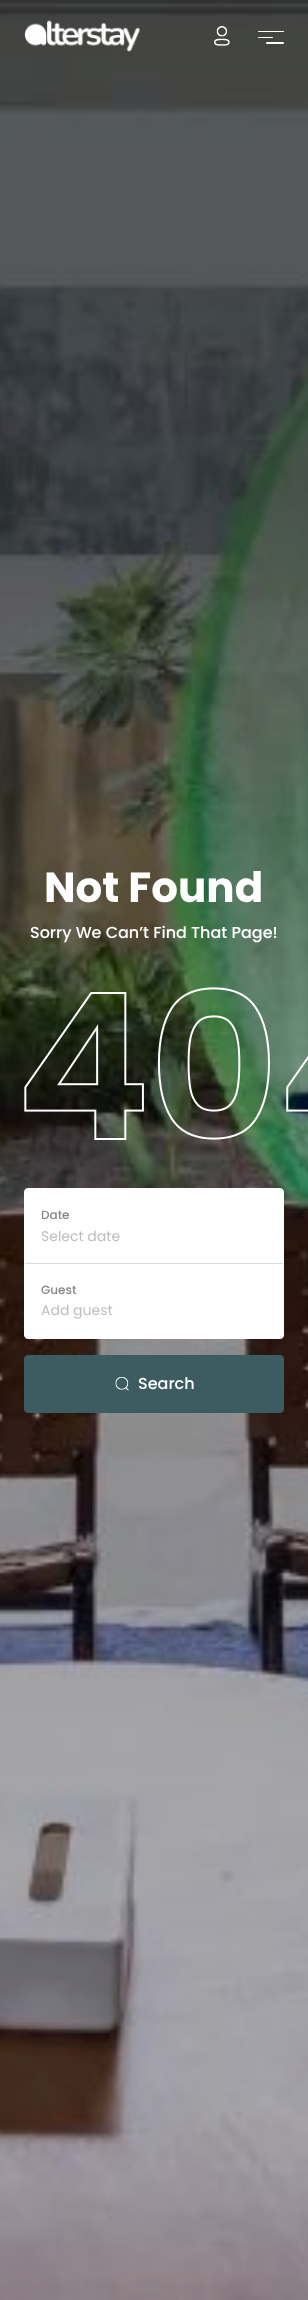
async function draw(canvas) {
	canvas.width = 308;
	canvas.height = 2300;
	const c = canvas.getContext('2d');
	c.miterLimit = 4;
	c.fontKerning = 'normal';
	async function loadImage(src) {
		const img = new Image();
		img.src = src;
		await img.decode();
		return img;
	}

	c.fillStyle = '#fff';
	c.fillRect(0, 0, 308, 2300);
	c.drawImage(await loadImage('img3.png'), 0, 0, 308, 2300);
	c.drawImage(await loadImage('img1.png'), 24, 20, 117, 32);
	c.drawImage(await loadImage('img2.png'), 214, 26, 16, 20);
	c.beginPath();
	c.roundRect(258, 31, 26, 1, 0.5);
	c.fill();
	c.beginPath();
	c.roundRect(258, 37, 15, 1, 0.5);
	c.fill();
	c.beginPath();
	c.roundRect(266, 42, 18, 2, 1);
	c.fill();
	c.font = 'bold 42px Poppins';
	c.fillText('Not Found', 44, 902);
	c.font = '500 16px Poppins';
	c.fillText('Sorry We Can’t Find That Page!', 30, 938);
	c.drawImage(await loadImage('img4.png'), 24, 987, 284, 153);
	c.beginPath();
	c.roundRect(24.5, 1188.5, 259, 150, 3.5);
	c.fill();
	c.strokeStyle = '#fff';
	c.stroke();
	c.fillStyle = '#d8dcda';
	c.fillRect(25, 1263, 258, 1);
	c.font = '500 12px Poppins';
	c.fillStyle = '#868686';
	c.fillText('Date', 41, 1219);
	c.font = '14px Poppins';
	c.fillStyle = '#bebebe';
	c.fillText('Select date', 41, 1241);
	c.font = '500 12px Poppins';
	c.fillStyle = '#868686';
	c.fillText('Guest', 41, 1294);
	c.font = '14px Poppins';
	c.fillStyle = '#bebebe';
	c.fillText('Add guest', 41, 1315);
	c.fillStyle = '#3d5c61';
	c.beginPath();
	c.roundRect(24.5, 1355.5, 259, 57, 3.5);
	c.fill();
	c.strokeStyle = '#3d5c61';
	c.stroke();
	c.drawImage(await loadImage('img5.png'), 115, 1376, 14, 15);
	c.font = '500 16px Poppins';
	c.fillStyle = '#fff';
	c.fillText('Search', 138, 1389);
}

draw(document.querySelector('canvas'));
